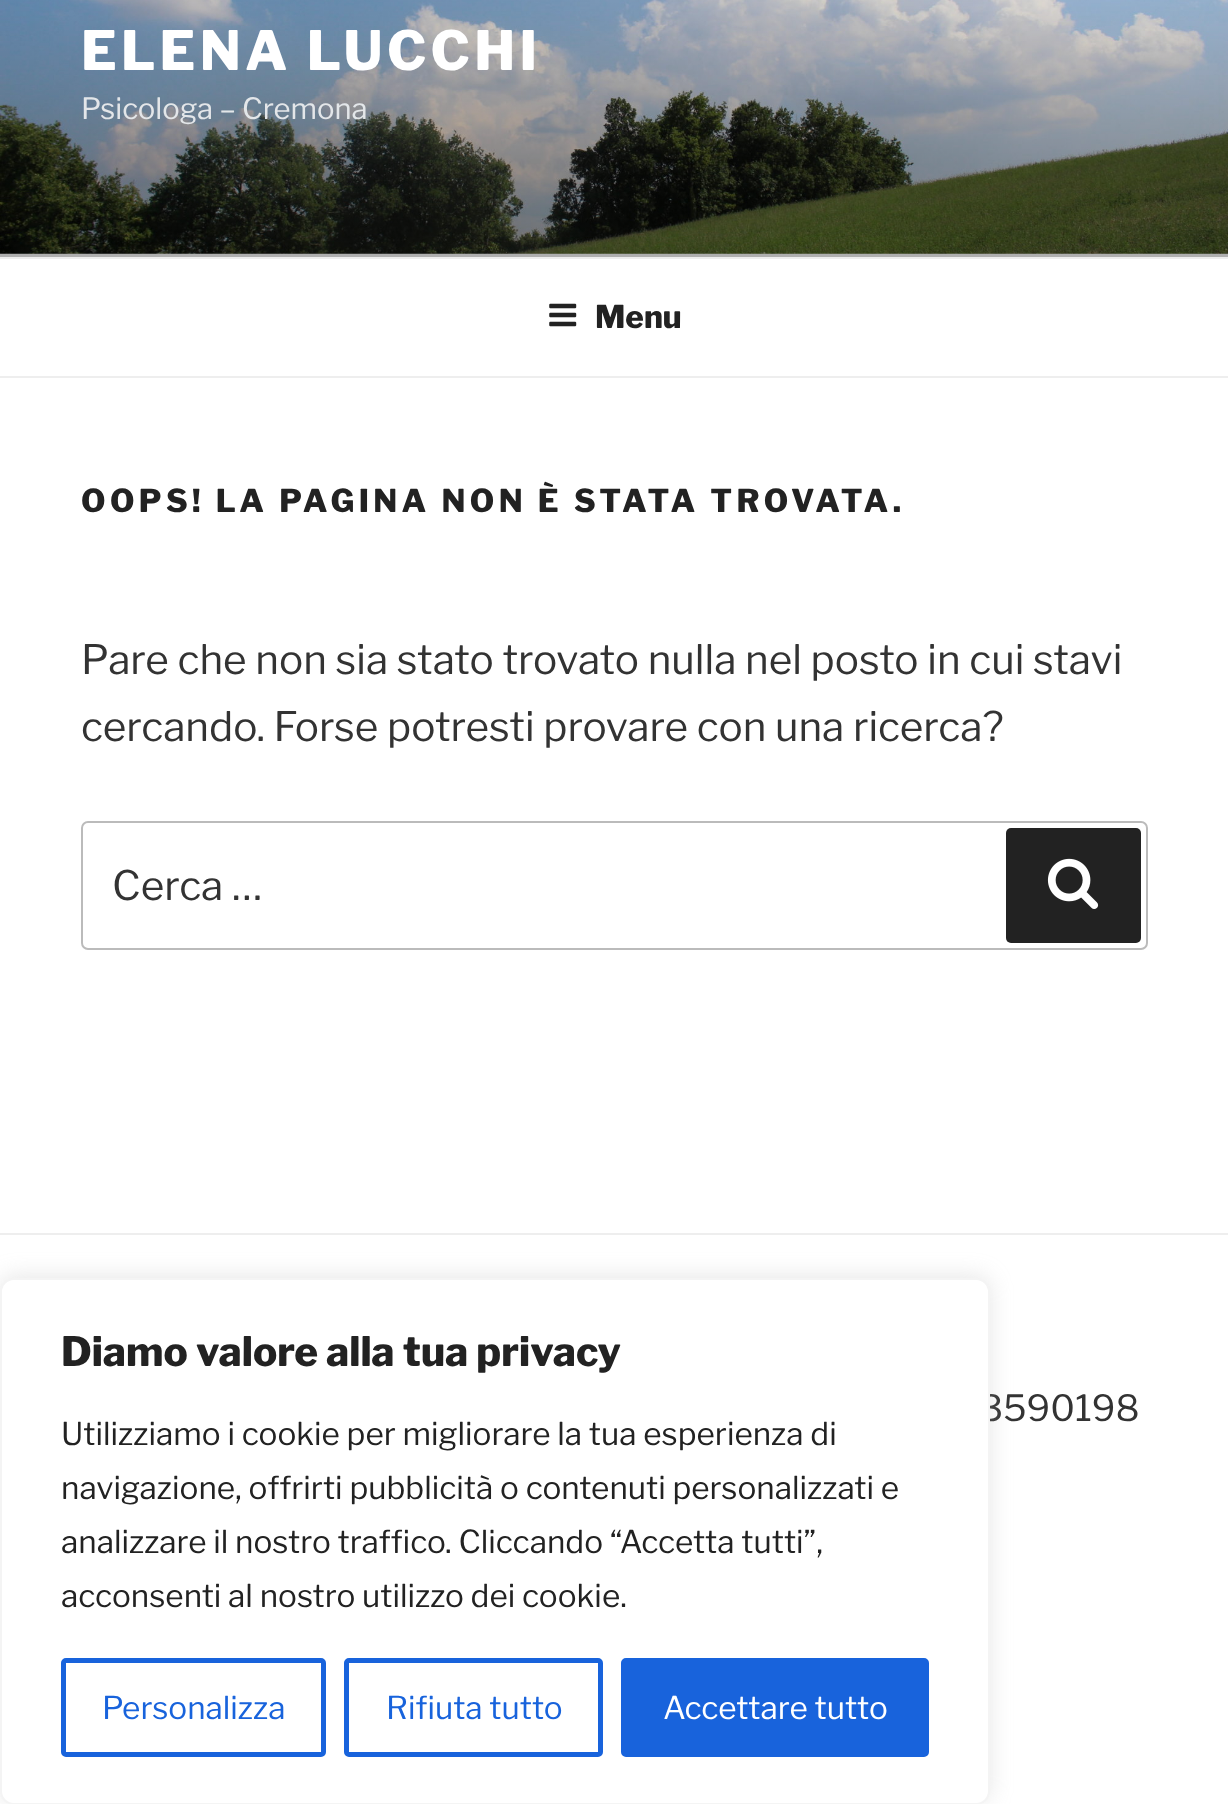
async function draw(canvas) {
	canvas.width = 1228;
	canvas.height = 1804;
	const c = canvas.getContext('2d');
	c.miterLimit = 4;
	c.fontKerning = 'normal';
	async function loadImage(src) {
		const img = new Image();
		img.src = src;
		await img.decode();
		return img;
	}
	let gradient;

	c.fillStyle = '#fff';
	c.fillRect(0, 0, 1228, 1804);
	c.fillStyle = '#fafafa';
	c.fillRect(0, 253, 1228, 4);
	c.drawImage(await loadImage('img1.png'), 0, 0, 1228, 254);
	gradient = c.createLinearGradient(614, -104, 614, 257);
	gradient.addColorStop(0, '#00000000');
	gradient.addColorStop(0.75, '#0000004d');
	gradient.addColorStop(1, '#0000004d');
	c.fillStyle = gradient;
	c.fillRect(0, 0, 1228, 257);
	c.letterSpacing = '4.25px';
	c.font = '800 54px Libre Franklin';
	c.fillStyle = '#fff';
	c.fillText('ELENA LUCCHI', 81, 70);
	c.letterSpacing = '0px';
	c.font = '29.25px Libre Franklin';
	c.fillStyle = '#e3e6e9';
	c.fillText('Psicologa – Cremona', 81, 119);
	c.fillStyle = '#eee';
	c.fillRect(0, 257, 1228, 2);
	c.fillRect(0, 376, 1228, 2);
	c.drawImage(await loadImage('img2.png'), 549, 303, 28, 24);
	c.font = '800 31.5px Libre Franklin';
	c.fillStyle = '#222';
	c.fillText('Menu', 595, 328);
	c.letterSpacing = '4.4px';
	c.fillText('OOPS! LA PAGINA NON È STATA TROVATA.', 81, 512);
	c.letterSpacing = '0px';
	c.font = '40.5px Libre Franklin';
	c.fillStyle = '#333';
	c.fillText('Pare che non sia stato trovato nulla nel posto in cui stavi', 81, 674);
	c.fillText('cercando. Forse potresti provare con una ricerca?', 81, 741);
	c.beginPath();
	c.roundRect(82, 822, 1065, 127, 6);
	c.strokeStyle = '#bbb';
	c.lineWidth = 2;
	c.stroke();
	c.fillText('Cerca …', 112, 900);
	c.fillStyle = '#222';
	c.beginPath();
	c.roundRect(1006, 828, 135, 115, 5);
	c.fill();
	c.drawImage(await loadImage('img3.png'), 1047, 858, 52, 51);
	c.fillStyle = '#eee';
	c.fillRect(0, 1233, 1228, 2);
	c.font = '36px Libre Franklin';
	c.fillStyle = '#333';
	c.fillText('3590198', 980, 1421);
	c.fillStyle = '#acabab4d';
	c.filter = 'blur(11px)';
	c.beginPath();
	c.roundRect(0, 1276, 990, 526, 14);
	c.fill();
	c.filter = 'none';
	c.fillStyle = '#fff';
	c.beginPath();
	c.roundRect(1, 1279, 988, 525, 13);
	c.fill();
	c.strokeStyle = '#f4f4f4';
	c.stroke();
	c.font = '800 40.5px Libre Franklin';
	c.fillStyle = '#222';
	c.fillText('Diamo valore alla tua privacy', 61, 1366);
	c.font = '31.5px Libre Franklin';
	for (const [text, x, y] of [
		['Utilizziamo i cookie per migliorare la tua esperienza di', 61, 1445],
		['navigazione, offrirti pubblicità o contenuti personalizzati e', 61, 1499],
		['analizzare il nostro traffico. Cliccando “Accetta tutti”,', 61, 1553],
		['acconsenti al nostro utilizzo dei cookie.', 61, 1607],
	]) {
		c.fillText(text, x, y);
	}
	c.beginPath();
	c.roundRect(63.5, 1660.5, 260, 94, 2.5);
	c.strokeStyle = '#1863dc';
	c.lineWidth = 5;
	c.stroke();
	c.fillStyle = '#1863dc';
	c.fillText('Personalizza', 102, 1719);
	c.beginPath();
	c.roundRect(346.5, 1660.5, 254, 94, 2.5);
	c.stroke();
	c.fillText('Rifiuta tutto', 386, 1719);
	c.beginPath();
	c.roundRect(623.5, 1660.5, 303, 94, 2.5);
	c.fill();
	c.stroke();
	c.fillStyle = '#fff';
	c.fillText('Accettare tutto', 663, 1719);
}

draw(document.querySelector('canvas'));
